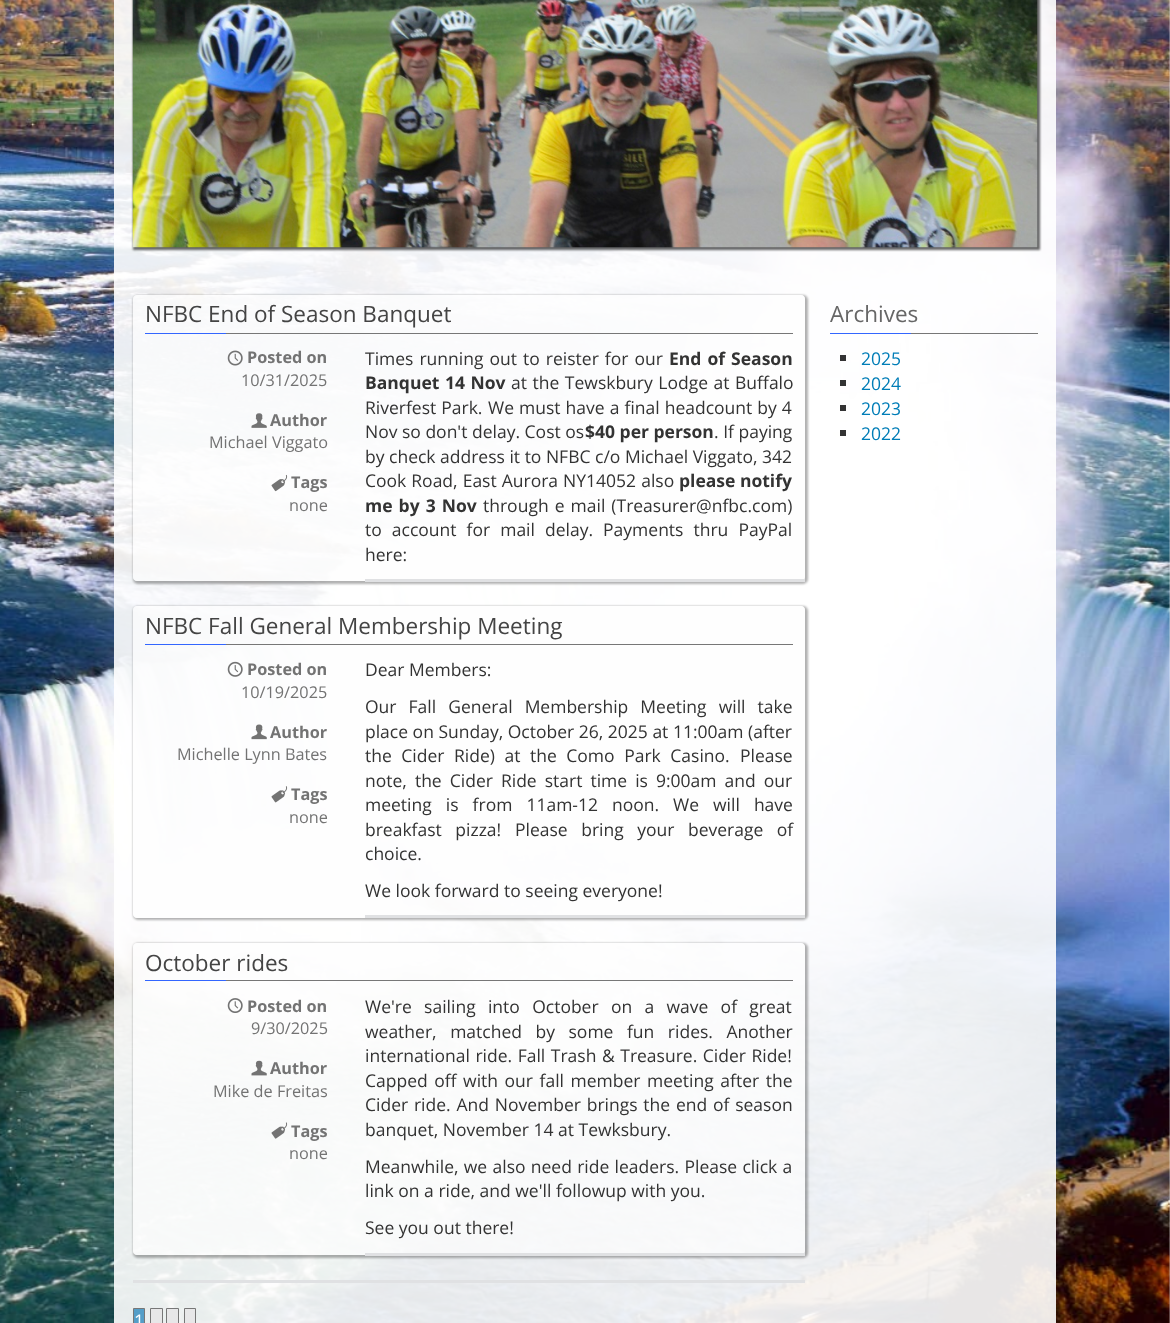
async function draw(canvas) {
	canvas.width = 1170;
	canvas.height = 1323;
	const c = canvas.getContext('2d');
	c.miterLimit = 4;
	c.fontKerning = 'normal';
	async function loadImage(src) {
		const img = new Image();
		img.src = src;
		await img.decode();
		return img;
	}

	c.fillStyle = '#fff';
	c.fillRect(0, 0, 1170, 1323);
	c.drawImage(await loadImage('img1.png'), 0, 0, 1170, 1323);
	c.fillStyle = '#ffffffe6';
	c.fillRect(114, 0, 942, 1323);
	c.fillStyle = '#00000099';
	c.filter = 'blur(1px)';
	c.beginPath();
	c.rect(133, -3, 907, 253);
	c.fill();
	c.filter = 'none';
	c.drawImage(await loadImage('img2.png'), 132, 0, 906, 248);
	c.save();
	c.beginPath();
	c.moveTo(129, 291);
	c.lineTo(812, 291);
	c.lineTo(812, 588);
	c.lineTo(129, 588);
	c.closePath();
	c.moveTo(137, 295);
	c.lineTo(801, 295);
	c.bezierCurveTo(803, 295, 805, 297, 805, 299);
	c.lineTo(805, 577);
	c.bezierCurveTo(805, 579, 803, 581, 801, 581);
	c.lineTo(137, 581);
	c.bezierCurveTo(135, 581, 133, 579, 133, 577);
	c.lineTo(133, 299);
	c.bezierCurveTo(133, 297, 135, 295, 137, 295);
	c.closePath();
	c.clip('evenodd');
	c.fillStyle = '#0000004d';
	c.filter = 'blur(1px)';
	c.beginPath();
	c.roundRect(133, 295, 675, 289, 5);
	c.fill();
	c.filter = 'none';
	c.restore();
	c.fillStyle = '#fdfdfdb3';
	c.beginPath();
	c.roundRect(133, 295, 672, 286, 4);
	c.fill();
	c.font = '22.5px Open Sans';
	c.fillStyle = '#444';
	c.fillText('NFBC End of Season Banquet', 145, 322);
	c.fillStyle = '#777';
	c.fillRect(226, 333, 567, 1);
	c.fillStyle = '#36f';
	c.fillRect(145, 333, 81, 1);
	c.drawImage(await loadImage('img3.png'), 227, 350, 16, 16);
	c.font = 'bold 16.25px Open Sans';
	c.fillStyle = '#737373';
	c.fillText('Posted on', 247, 363);
	c.font = '16.25px Open Sans';
	c.fillText('10/31/2025', 241, 386);
	c.drawImage(await loadImage('img4.png'), 251, 413, 16, 15);
	c.font = 'bold 16.25px Open Sans';
	c.fillText('Author', 270, 426);
	c.font = '16.25px Open Sans';
	c.fillText('Michael Viggato', 209, 448);
	c.drawImage(await loadImage('img5.png'), 271, 474, 17, 18);
	c.font = 'bold 16.25px Open Sans';
	c.fillText('Tags', 291, 488);
	c.font = '16.25px Open Sans';
	c.fillText('none', 289, 511);
	c.wordSpacing = '1.5px';
	c.font = '17.5px Open Sans';
	c.fillStyle = '#333';
	c.fillText('Times running out to reister for our', 365, 365);
	c.font = 'bold 17.5px Open Sans';
	c.fillText('End of Season', 669, 365);
	c.wordSpacing = '1px';
	c.fillText('Banquet 14 Nov', 365, 389);
	c.font = '17.5px Open Sans';
	c.fillText('at the Tewskbury Lodge at Buffalo', 511, 389);
	c.wordSpacing = '0.5px';
	c.fillText('Riverfest Park.', 365, 414);
	c.fillText('We must have a final headcount by 4', 488, 414);
	c.wordSpacing = '0px';
	c.fillText('Nov so don\'t delay. Cost os', 365, 438);
	c.font = 'bold 17.5px Open Sans';
	c.fillText('$40 per person', 585, 438);
	c.font = '17.5px Open Sans';
	c.fillText('. If paying', 714, 438);
	c.fillText('by check address it to NFBC c/o Michael Viggato, 342', 365, 463);
	c.wordSpacing = '0.5px';
	c.fillText('Cook Road, East Aurora NY14052 also', 365, 487);
	c.wordSpacing = '0px';
	c.font = 'bold 17.5px Open Sans';
	c.fillText('please notify', 679, 487);
	c.wordSpacing = '1.5px';
	c.fillText('me by 3 Nov', 365, 512);
	c.font = '17.5px Open Sans';
	c.fillText('through e mail (Treasurer@nfbc.com)', 483, 512);
	c.wordSpacing = '5.5px';
	c.fillText('to account for mail delay. Payments thru PayPal', 365, 536);
	c.wordSpacing = '0px';
	c.fillText('here:', 365, 561);
	c.fillStyle = '#e0e1e3';
	c.fillRect(365, 579, 440, 3);
	c.save();
	c.beginPath();
	c.moveTo(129, 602);
	c.lineTo(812, 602);
	c.lineTo(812, 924);
	c.lineTo(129, 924);
	c.closePath();
	c.moveTo(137, 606);
	c.lineTo(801, 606);
	c.bezierCurveTo(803, 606, 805, 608, 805, 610);
	c.lineTo(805, 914);
	c.bezierCurveTo(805, 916, 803, 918, 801, 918);
	c.lineTo(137, 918);
	c.bezierCurveTo(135, 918, 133, 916, 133, 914);
	c.lineTo(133, 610);
	c.bezierCurveTo(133, 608, 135, 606, 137, 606);
	c.closePath();
	c.clip('evenodd');
	c.fillStyle = '#0000004d';
	c.filter = 'blur(1px)';
	c.beginPath();
	c.roundRect(133, 606, 675, 314, 5);
	c.fill();
	c.filter = 'none';
	c.restore();
	c.fillStyle = '#fdfdfdb3';
	c.beginPath();
	c.roundRect(133, 606, 672, 312, 4);
	c.fill();
	c.font = '22.5px Open Sans';
	c.fillStyle = '#444';
	c.fillText('NFBC Fall General Membership Meeting', 145, 634);
	c.fillStyle = '#777';
	c.fillRect(226, 644, 567, 1);
	c.fillStyle = '#36f';
	c.fillRect(145, 644, 81, 1);
	c.drawImage(await loadImage('img6.png'), 227, 661, 16, 16);
	c.font = 'bold 16.25px Open Sans';
	c.fillStyle = '#737373';
	c.fillText('Posted on', 247, 675);
	c.font = '16.25px Open Sans';
	c.fillText('10/19/2025', 241, 698);
	c.drawImage(await loadImage('img7.png'), 251, 724, 16, 16);
	c.font = 'bold 16.25px Open Sans';
	c.fillText('Author', 270, 738);
	c.font = '16.25px Open Sans';
	c.fillText('Michelle Lynn Bates', 177, 760);
	c.drawImage(await loadImage('img8.png'), 271, 786, 17, 17);
	c.font = 'bold 16.25px Open Sans';
	c.fillText('Tags', 291, 800);
	c.font = '16.25px Open Sans';
	c.fillText('none', 289, 823);
	c.font = '17.5px Open Sans';
	c.fillStyle = '#333';
	c.fillText('Dear Members:', 365, 676);
	c.wordSpacing = '7.5px';
	c.fillText('Our Fall General Membership Meeting will take', 365, 713);
	c.wordSpacing = '0px';
	c.fillText('place on Sunday, October 26, 2025 at 11:00am (after', 365, 738);
	c.wordSpacing = '5px';
	c.fillText('the Cider Ride) at the Como Park Casino.', 365, 762);
	c.wordSpacing = '0px';
	c.fillText('Please', 740, 762);
	c.wordSpacing = '3.5px';
	c.fillText('note, the Cider Ride start time is 9:00am and our', 365, 787);
	c.wordSpacing = '9.5px';
	c.fillText('meeting is from 11am-12 noon.', 365, 811);
	c.fillText('We will have', 673, 811);
	c.wordSpacing = '9px';
	c.fillText('breakfast pizza!', 365, 836);
	c.fillText('Please bring your beverage of', 515, 836);
	c.wordSpacing = '0px';
	c.fillText('choice.', 365, 860);
	c.fillText('We look forward to seeing everyone!', 365, 897);
	c.fillStyle = '#e0e1e3';
	c.fillRect(365, 915, 440, 3);
	c.save();
	c.beginPath();
	c.moveTo(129, 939);
	c.lineTo(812, 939);
	c.lineTo(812, 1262);
	c.lineTo(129, 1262);
	c.closePath();
	c.moveTo(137, 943);
	c.lineTo(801, 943);
	c.bezierCurveTo(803, 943, 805, 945, 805, 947);
	c.lineTo(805, 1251);
	c.bezierCurveTo(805, 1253, 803, 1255, 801, 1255);
	c.lineTo(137, 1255);
	c.bezierCurveTo(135, 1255, 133, 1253, 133, 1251);
	c.lineTo(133, 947);
	c.bezierCurveTo(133, 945, 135, 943, 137, 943);
	c.closePath();
	c.clip('evenodd');
	c.fillStyle = '#0000004d';
	c.filter = 'blur(1px)';
	c.beginPath();
	c.roundRect(133, 943, 675, 315, 5);
	c.fill();
	c.filter = 'none';
	c.restore();
	c.fillStyle = '#fdfdfdb3';
	c.beginPath();
	c.roundRect(133, 943, 672, 312, 4);
	c.fill();
	c.font = '22.5px Open Sans';
	c.fillStyle = '#444';
	c.fillText('October rides', 145, 971);
	c.fillStyle = '#777';
	c.fillRect(226, 980, 567, 1);
	c.fillStyle = '#36f';
	c.fillRect(145, 980, 81, 1);
	c.drawImage(await loadImage('img9.png'), 227, 998, 16, 15);
	c.font = 'bold 16.25px Open Sans';
	c.fillStyle = '#737373';
	c.fillText('Posted on', 247, 1012);
	c.font = '16.25px Open Sans';
	c.fillText('9/30/2025', 251, 1034);
	c.drawImage(await loadImage('img10.png'), 251, 1060, 16, 16);
	c.font = 'bold 16.25px Open Sans';
	c.fillText('Author', 270, 1074);
	c.font = '16.25px Open Sans';
	c.fillText('Mike de Freitas', 213, 1097);
	c.drawImage(await loadImage('img11.png'), 271, 1122, 17, 17);
	c.font = 'bold 16.25px Open Sans';
	c.fillText('Tags', 291, 1137);
	c.font = '16.25px Open Sans';
	c.fillText('none', 289, 1159);
	c.wordSpacing = '7.75px';
	c.font = '17.5px Open Sans';
	c.fillStyle = '#333';
	c.fillText('We\'re sailing into October on a wave of great', 365, 1013);
	c.wordSpacing = '9px';
	c.fillText('weather, matched by some fun rides. Another', 365, 1038);
	c.wordSpacing = '1px';
	c.fillText('international ride. Fall Trash & Treasure. Cider Ride!', 365, 1062);
	c.wordSpacing = '2px';
	c.fillText('Capped off with our fall member meeting after the', 365, 1087);
	c.wordSpacing = '1.25px';
	c.fillText('Cider ride. And November brings the end of season', 365, 1111);
	c.wordSpacing = '0px';
	c.fillText('banquet, November 14 at Tewksbury.', 365, 1136);
	c.wordSpacing = '0.75px';
	c.fillText('Meanwhile, we also need ride leaders. Please click a', 365, 1173);
	c.wordSpacing = '0px';
	c.fillText('link on a ride, and we\'ll followup with you.', 365, 1197);
	c.fillText('See you out there!', 365, 1234);
	c.fillStyle = '#e0e1e3';
	c.fillRect(365, 1253, 440, 3);
	c.fillRect(133, 1280, 672, 3);
	c.fillStyle = '#549ec8';
	c.beginPath();
	c.rect(133.5, 1308.5, 11, 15);
	c.fill();
	c.strokeStyle = '#777';
	c.stroke();
	c.fillStyle = '#fff';
	c.fillText('1', 134, 1327);
	c.fillStyle = '#e7e7e8';
	c.beginPath();
	c.rect(150.5, 1308.5, 12, 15);
	c.fill();
	c.stroke();
	c.beginPath();
	c.rect(166.5, 1308.5, 12, 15);
	c.fill();
	c.stroke();
	c.beginPath();
	c.rect(184.5, 1308.5, 11, 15);
	c.fill();
	c.stroke();
	c.font = '22.5px Open Sans';
	c.fillStyle = '#666';
	c.fillText('Archives', 830, 322);
	for (const [x, y, w, h, color] of [
		[911, 333, 127, 1, '#777'],
		[830, 333, 81, 1, '#36f'],
		[840, 355, 6, 6, '#333'],
	]) {
		c.fillStyle = color;
		c.fillRect(x, y, w, h);
	}
	c.font = '17.5px Open Sans';
	c.fillStyle = '#007db7';
	c.fillText('2025', 861, 365);
	c.fillStyle = '#333';
	c.fillRect(840, 380, 6, 6);
	c.fillStyle = '#007db7';
	c.fillText('2024', 861, 390);
	c.fillStyle = '#333';
	c.fillRect(840, 405, 6, 6);
	c.fillStyle = '#007db7';
	c.fillText('2023', 861, 415);
	c.fillStyle = '#333';
	c.fillRect(840, 430, 6, 6);
	c.fillStyle = '#007db7';
	c.fillText('2022', 861, 440);
}

draw(document.querySelector('canvas'));
